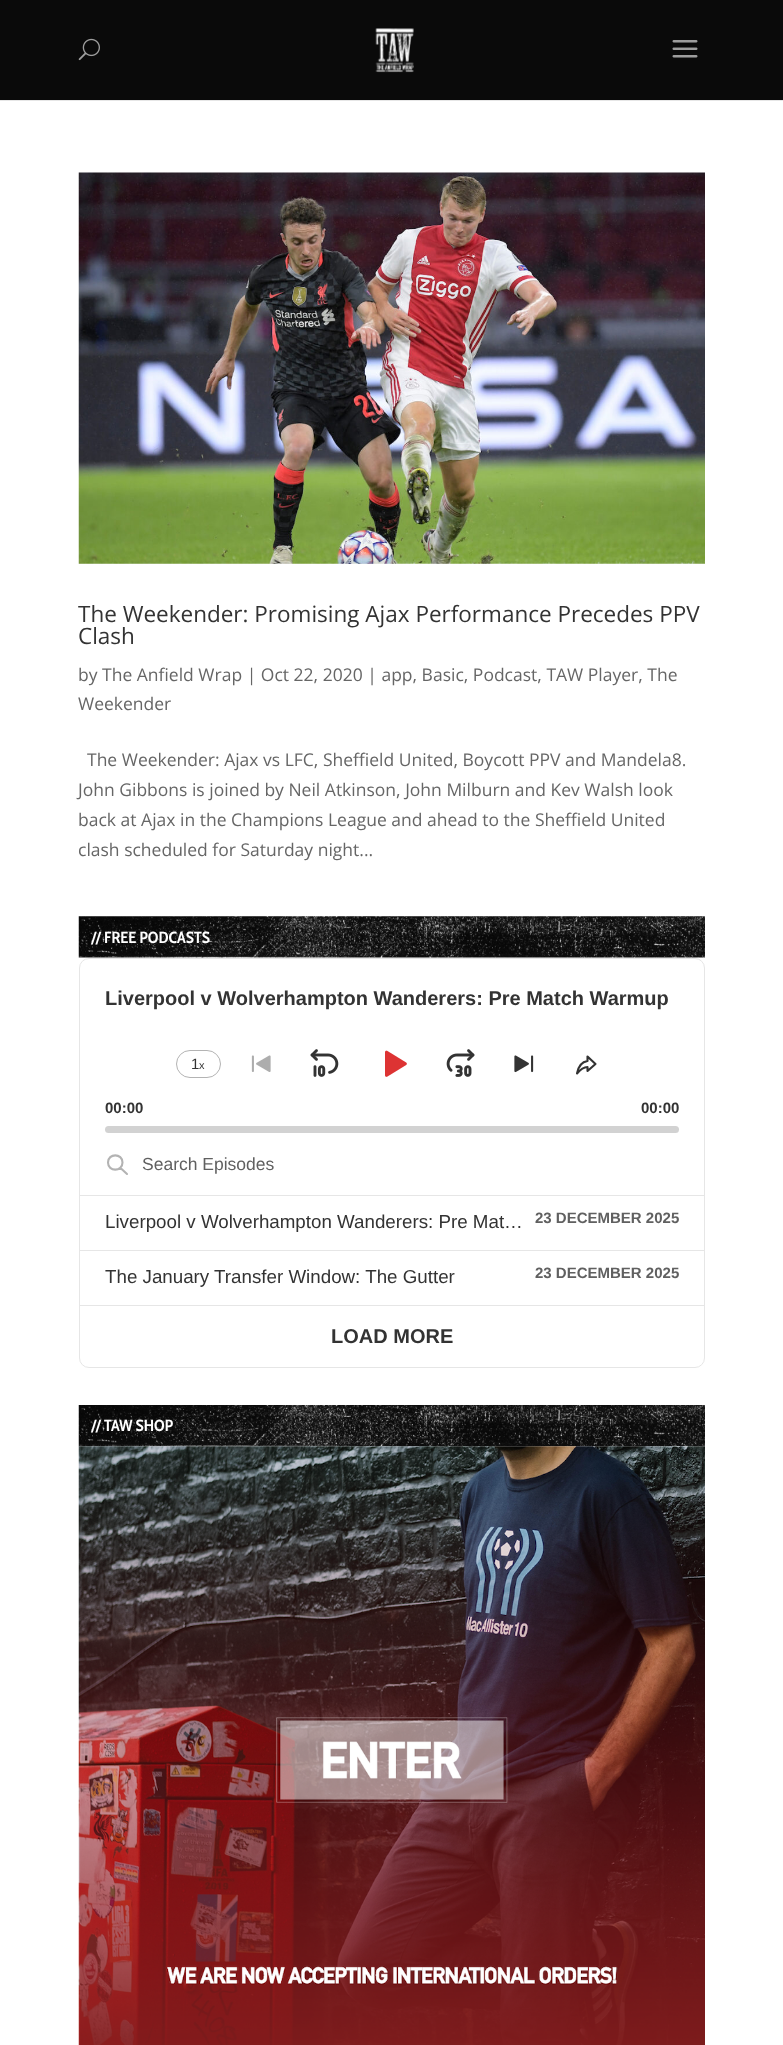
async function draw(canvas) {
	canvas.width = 783;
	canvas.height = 2045;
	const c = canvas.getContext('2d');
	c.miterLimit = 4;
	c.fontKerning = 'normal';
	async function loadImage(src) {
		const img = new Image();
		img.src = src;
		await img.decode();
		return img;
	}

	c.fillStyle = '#fff';
	c.fillRect(0, 0, 783, 2045);
	c.fillStyle = '#e6e6e6';
	c.beginPath();
	c.moveTo(0, 100);
	c.lineTo(0, 101);
	c.lineTo(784, 101);
	c.lineTo(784, 1);
	c.lineTo(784, 100);
	c.closePath();
	c.fill();
	c.fillStyle = '#0a0a0a';
	c.fillRect(0, 0, 783, 100);
	c.drawImage(await loadImage('img1.png'), 375, 28, 39, 45);
	c.drawImage(await loadImage('img2.png'), 78, 38, 22, 23);
	c.drawImage(await loadImage('img3.png'), 672, 40, 26, 18);
	c.drawImage(await loadImage('img4.png'), 78, 172, 627, 392);
	c.font = '22.5px Open Sans';
	c.fillStyle = '#333';
	c.fillText('The Weekender: Promising Ajax Performance Precedes PPV', 78, 622);
	c.fillText('Clash', 78, 644);
	c.font = '17.5px Open Sans';
	c.fillStyle = '#666';
	for (const [text, x, y] of [
		['by The Anfield Wrap | Oct 22, 2020 | app, Basic, Podcast, TAW Player, The', 78, 681],
		['Weekender', 78, 710],
		['The Weekender: Ajax vs LFC, Sheffield United, Boycott PPV and Mandela8.', 87, 766],
		['John Gibbons is joined by Neil Atkinson, John Milburn and Kev Walsh look', 78, 796],
		['back at Ajax in the Champions League and ahead to the Sheffield United', 78, 826],
		['clash scheduled for Saturday night...', 78, 856],
	]) {
		c.fillText(text, x, y);
	}
	c.drawImage(await loadImage('img5.png'), 78, 916, 627, 42);
	c.font = 'bold 16.25px Cabin Condensed';
	c.fillStyle = '#fff';
	c.fillText('// FREE PODCASTS', 91, 943);
	c.beginPath();
	c.roundRect(79.5, 958.5, 625, 409, 9.5);
	c.strokeStyle = '#e6e6e6';
	c.stroke();
	c.font = 'bold 20px Liberation Sans';
	c.fillStyle = '#333';
	c.fillText('Liverpool v Wolverhampton Wanderers: Pre Match Warmup', 105, 1005);
	c.beginPath();
	c.roundRect(176.5, 1050.5, 44, 27, 13.5);
	c.strokeStyle = '#b3b3b3';
	c.stroke();
	c.font = '15px Liberation Sans';
	c.fillText('1', 191, 1069);
	c.font = '11px Liberation Sans';
	c.fillText('x', 199, 1069);
	c.drawImage(await loadImage('img6.png'), 251, 1055, 20, 17);
	c.drawImage(await loadImage('img7.png'), 310, 1049, 29, 28);
	c.drawImage(await loadImage('img8.png'), 385, 1050, 22, 27);
	c.drawImage(await loadImage('img9.png'), 446, 1049, 29, 28);
	c.drawImage(await loadImage('img10.png'), 514, 1055, 20, 18);
	c.beginPath();
	c.moveTo(587.5, 1056.5);
	c.lineTo(587.5, 1061);
	c.bezierCurveTo(580.5, 1062, 578, 1068, 577, 1073.5);
	c.bezierCurveTo(577, 1073.5, 582.5, 1067, 587.5, 1067);
	c.lineTo(587.5, 1071);
	c.lineTo(595.5, 1064);
	c.closePath();
	c.strokeStyle = '#333';
	c.lineWidth = 2.1;
	c.lineCap = 'round';
	c.lineJoin = 'round';
	c.stroke();
	c.font = 'bold 15px Liberation Sans';
	c.fillText('00:00', 105, 1113);
	c.fillText('00:00', 641, 1113);
	c.fillStyle = '#d2d2d2';
	c.beginPath();
	c.roundRect(105, 1126, 574, 7, 3.5);
	c.fill();
	c.fillStyle = '#e6e6e6';
	c.fillRect(80, 1195, 624, 1);
	c.beginPath();
	c.moveTo(108, 1162.5);
	c.bezierCurveTo(108, 1172, 122.5, 1172, 122.5, 1162.5);
	c.bezierCurveTo(122.5, 1153, 108, 1153, 108, 1162.5);
	c.moveTo(127, 1174);
	c.lineTo(120.5, 1168);
	c.strokeStyle = '#b3b3b3';
	c.stroke();
	c.font = '17.5px Liberation Sans';
	c.fillStyle = '#606060';
	c.fillText('Search Episodes', 142, 1170);
	c.fillStyle = '#e6e6e6';
	c.fillRect(80, 1250, 624, 1);
	c.font = '18.75px Liberation Sans';
	c.fillStyle = '#333';
	c.fillText('Liverpool v Wolverhampton Wanderers: Pre Mat…', 105, 1228);
	c.font = 'bold 15px Liberation Sans';
	c.fillStyle = '#606060';
	c.fillText('23 DECEMBER 2025', 535, 1223);
	c.fillStyle = '#e6e6e6';
	c.fillRect(80, 1305, 624, 1);
	c.font = '18.75px Liberation Sans';
	c.fillStyle = '#333';
	c.fillText('The January Transfer Window: The Gutter', 105, 1283);
	c.font = 'bold 15px Liberation Sans';
	c.fillStyle = '#606060';
	c.fillText('23 DECEMBER 2025', 535, 1278);
	c.font = 'bold 20px Liberation Sans';
	c.fillStyle = '#333';
	c.fillText('LOAD MORE', 331, 1343);
	c.drawImage(await loadImage('img11.png'), 78, 1405, 627, 42);
	c.font = 'bold 16.25px Cabin Condensed';
	c.fillStyle = '#fff';
	c.fillText('// TAW SHOP', 91, 1431);
	c.drawImage(await loadImage('img12.png'), 78, 1446, 627, 599);
}

draw(document.querySelector('canvas'));
